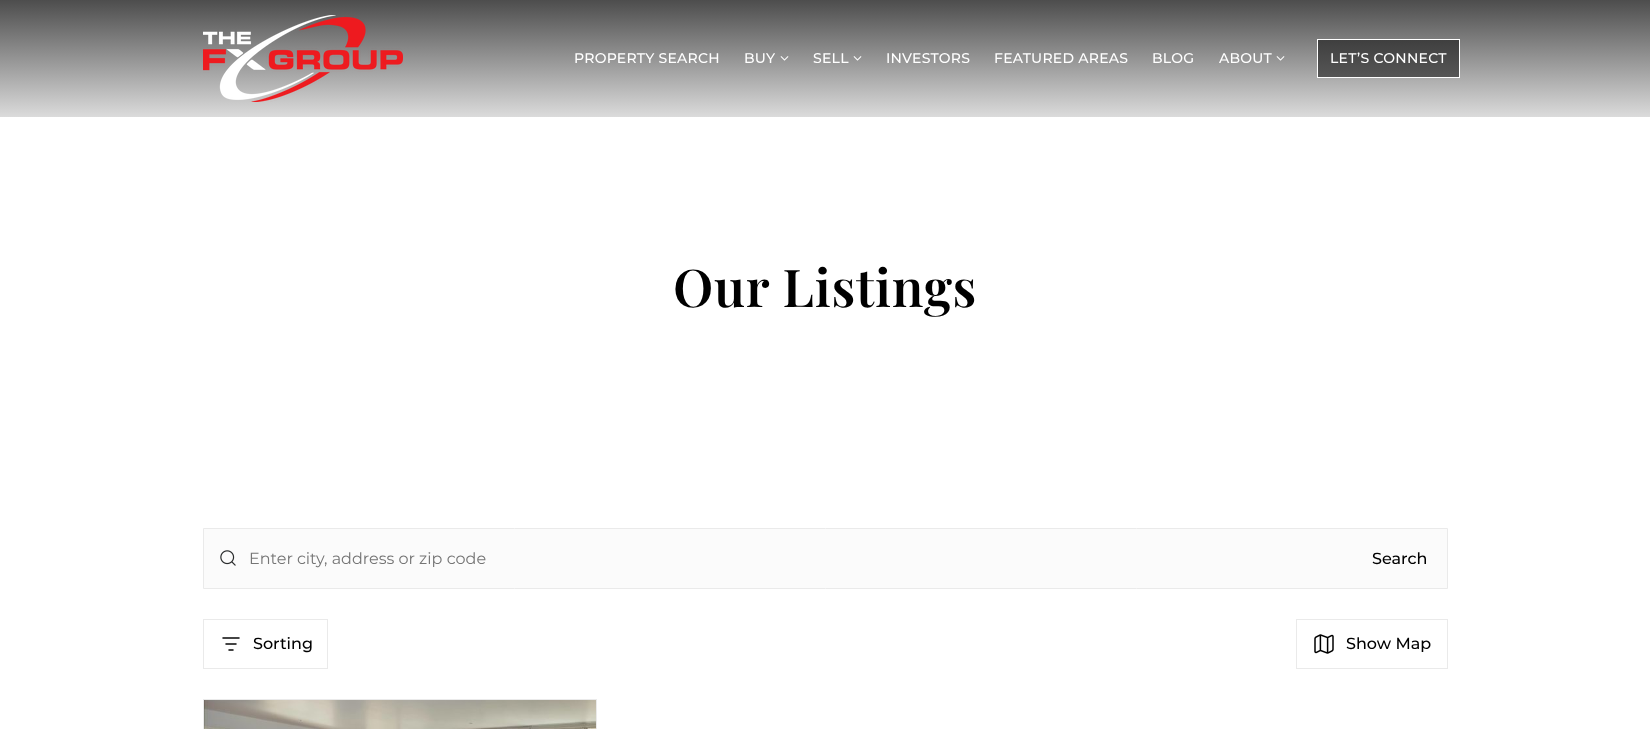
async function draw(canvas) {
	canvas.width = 1650;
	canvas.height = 729;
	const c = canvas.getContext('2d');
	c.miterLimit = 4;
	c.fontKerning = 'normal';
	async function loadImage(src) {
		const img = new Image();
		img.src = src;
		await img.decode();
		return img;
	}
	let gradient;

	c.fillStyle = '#fff';
	c.fillRect(0, 0, 1650, 729);
	gradient = c.createLinearGradient(825, 0, 825, 117);
	gradient.addColorStop(0, '#4d4d4d');
	gradient.addColorStop(1, '#dbdbdb');
	c.fillStyle = gradient;
	c.fillRect(0, 0, 1650, 117);
	gradient = c.createLinearGradient(825, 0, 825, 117);
	gradient.addColorStop(0, '#272727');
	gradient.addColorStop(1, '#6e6e6e');
	c.fillStyle = gradient;
	c.fillRect(1318, 40, 141, 37);
	c.drawImage(await loadImage('img1.png'), 203, 15, 200, 87);
	c.letterSpacing = '0.25px';
	c.font = '500 14px Montserrat';
	c.fillStyle = '#fff';
	c.fillText('PROPERTY SEARCH', 574, 63);
	c.fillText('BUY', 744, 63);
	c.drawImage(await loadImage('img2.png'), 780, 56, 9, 5);
	c.fillText('SELL', 813, 63);
	c.drawImage(await loadImage('img2.png'), 853, 56, 9, 5);
	for (const [text, x, y] of [
		['INVESTORS', 886, 63],
		['FEATURED AREAS', 994, 63],
		['BLOG', 1152, 63],
		['ABOUT', 1219, 63],
	]) {
		c.fillText(text, x, y);
	}
	c.drawImage(await loadImage('img2.png'), 1276, 56, 9, 5);
	c.strokeStyle = '#fff';
	c.strokeRect(1317.5, 39.5, 142, 38);
	c.fillText('LET’S CONNECT', 1330, 63);
	c.letterSpacing = '0.75px';
	c.font = '600 52px Playfair Display';
	c.fillStyle = '#000';
	c.fillText('Our Listings', 673, 307);
	c.fillStyle = '#fbfbfb';
	c.beginPath();
	c.rect(203.5, 528.5, 1244, 60);
	c.fill();
	c.strokeStyle = '#eaeaea';
	c.stroke();
	c.drawImage(await loadImage('img3.png'), 220, 550, 16, 16);
	c.letterSpacing = '0px';
	c.font = '16px Montserrat';
	c.fillStyle = '#757575';
	c.fillText('Enter city, address or zip code', 249, 564);
	c.font = '500 16px Montserrat';
	c.fillStyle = '#000';
	c.fillText('Search', 1372, 564);
	c.strokeRect(203.5, 619.5, 124, 49);
	c.drawImage(await loadImage('img4.png'), 222, 637, 18, 14);
	c.fillText('Sorting', 253, 649);
	c.strokeRect(1296.5, 619.5, 151, 49);
	c.drawImage(await loadImage('img5.png'), 1314, 634, 20, 20);
	c.fillText('Show Map', 1346, 649);
	c.strokeRect(203.5, 699.5, 393, 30);
	c.drawImage(await loadImage('img6.png'), 204, 700, 392, 29);
}

draw(document.querySelector('canvas'));
